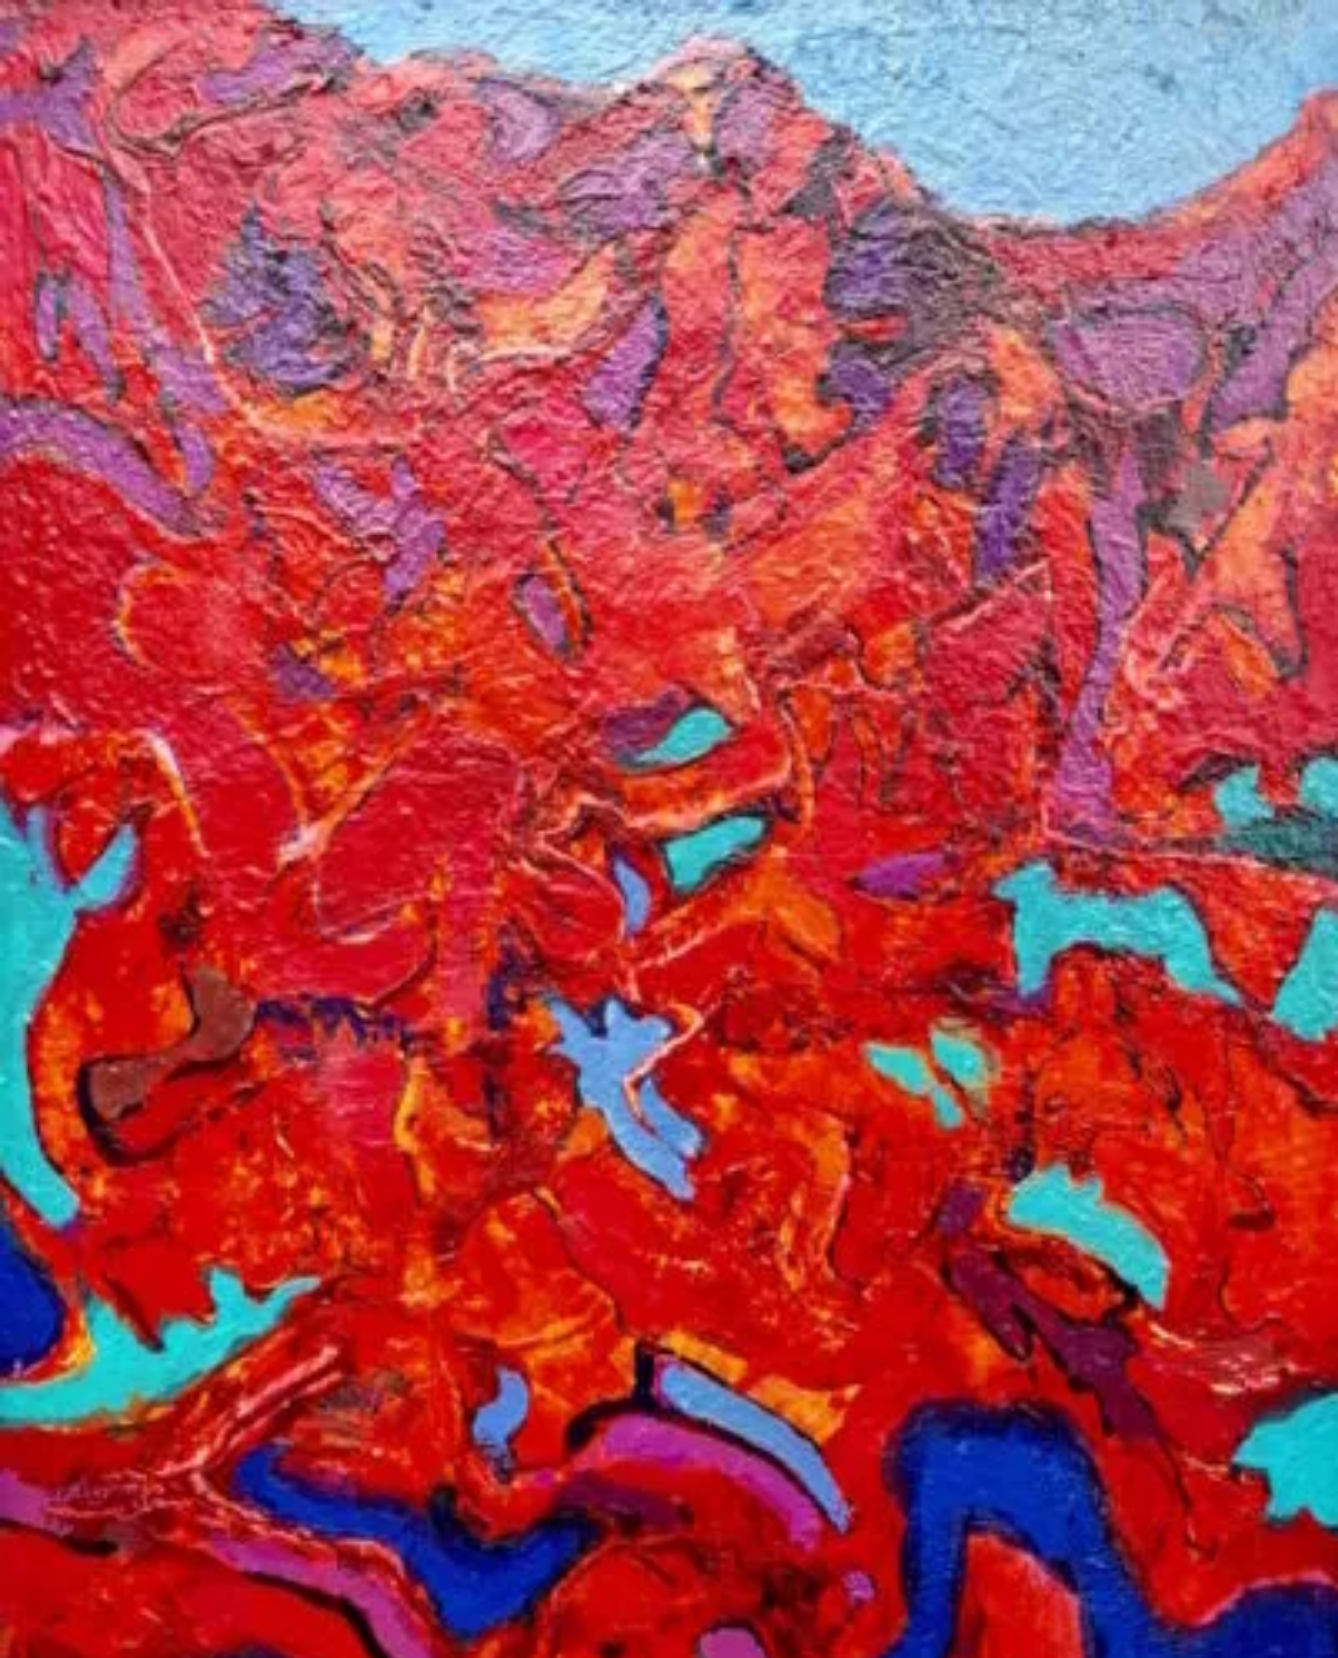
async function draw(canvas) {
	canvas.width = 1338;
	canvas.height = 1658;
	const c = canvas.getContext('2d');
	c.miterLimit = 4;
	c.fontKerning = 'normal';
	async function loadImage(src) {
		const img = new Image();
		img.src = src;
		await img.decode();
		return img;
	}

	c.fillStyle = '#fff';
	c.fillRect(0, 0, 1338, 1658);
	c.drawImage(await loadImage('img1.png'), 0, 0, 1338, 1658);
}

draw(document.querySelector('canvas'));
